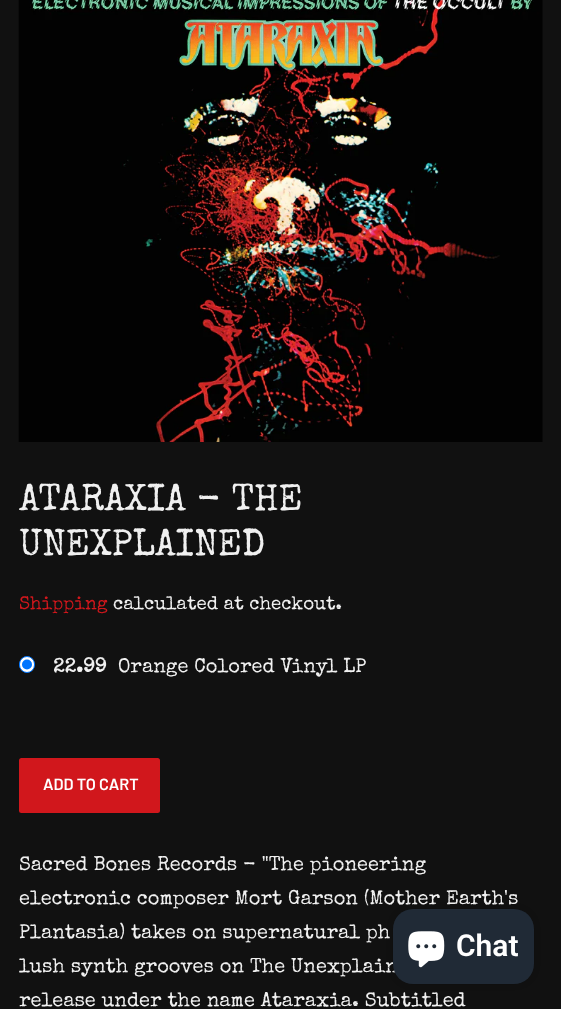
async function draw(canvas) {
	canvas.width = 561;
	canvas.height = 1009;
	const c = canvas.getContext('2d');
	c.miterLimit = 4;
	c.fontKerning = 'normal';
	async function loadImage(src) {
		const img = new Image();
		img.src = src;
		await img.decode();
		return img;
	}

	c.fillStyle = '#111';
	c.fillRect(0, 0, 561, 1009);
	c.drawImage(await loadImage('img1.png'), 18, 0, 525, 442);
	c.font = '37.5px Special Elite';
	c.fillStyle = '#f0f0f0';
	c.fillText('ATARAXIA - THE', 19, 510);
	c.fillText('UNEXPLAINED', 19, 555);
	c.font = '18.75px Special Elite';
	c.fillStyle = '#d1171c';
	c.fillText('Shipping', 19, 609);
	c.fillStyle = '#f0f0f0';
	c.fillText('calculated at checkout.', 113, 609);
	c.fillStyle = '#fff';
	c.beginPath();
	c.roundRect(19.5, 656.5, 15, 16, 7.5);
	c.fill();
	c.strokeStyle = '#0075ff';
	c.stroke();
	c.fillStyle = '#0075ff';
	c.beginPath();
	c.arc(27, 664.5, 5, 0, 2 * Math.PI);
	c.fill();
	c.font = 'bold 20px Special Elite';
	c.fillStyle = '#f0f0f0';
	c.fillText('22.99', 53, 672);
	c.font = '20px Special Elite';
	c.fillText('Orange Colored Vinyl LP', 118, 672);
	c.fillStyle = '#d1171c';
	c.beginPath();
	c.roundRect(19, 758, 141, 55, 2.5);
	c.fill();
	c.font = '600 16.25px Barlow';
	c.fillStyle = '#fff';
	c.fillText('ADD TO CART', 43, 790);
	c.font = '20px Special Elite';
	c.fillStyle = '#f0f0f0';
	for (const [text, x, y] of [
		['Sacred Bones Records - "The pioneering', 19, 870],
		['electronic composer Mort Garson (Mother Earth\'s', 19, 904],
		['Plantasia) takes on supernatural ph', 19, 938],
		['lush synth grooves on The Unexplain', 19, 972],
		['release under the name Ataraxia. Subtitled', 19, 1006],
	]) {
		c.fillText(text, x, y);
	}
	c.fillStyle = '#00000026';
	c.filter = 'blur(3px)';
	c.beginPath();
	c.roundRect(393, 909, 141, 75, 20);
	c.fill();
	c.filter = 'none';
	c.fillStyle = '#202a36';
	c.beginPath();
	c.roundRect(393, 909, 141, 75, 20);
	c.fill();
	c.drawImage(await loadImage('img2.png'), 408, 931, 37, 37);
	c.font = '600 30px Roboto';
	c.fillStyle = '#fff';
	c.fillText('Chat', 456, 956);
}

draw(document.querySelector('canvas'));
